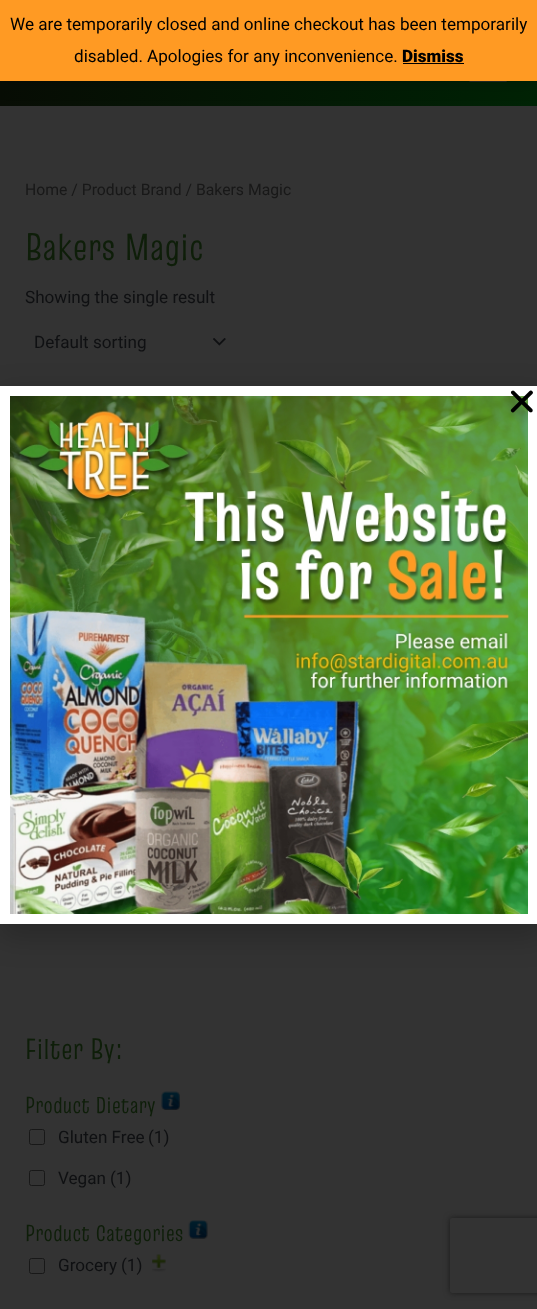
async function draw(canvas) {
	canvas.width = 537;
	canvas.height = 1309;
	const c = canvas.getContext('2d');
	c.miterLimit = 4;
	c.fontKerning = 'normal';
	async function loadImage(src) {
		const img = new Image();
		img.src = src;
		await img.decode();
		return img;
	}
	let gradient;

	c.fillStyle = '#333';
	c.fillRect(0, 0, 537, 1309);
	gradient = c.createLinearGradient(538, -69, 0, -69);
	gradient.addColorStop(0, '#002305');
	gradient.addColorStop(1, '#080d05');
	c.fillStyle = gradient;
	c.fillRect(0, 81, 537, 25);
	c.drawImage(await loadImage('img1.png'), 469, 81, 39, 1);
	c.fillStyle = '#00000033';
	c.filter = 'blur(8.5px)';
	c.beginPath();
	c.rect(0, 1, 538, 82);
	c.fill();
	c.filter = 'none';
	c.fillStyle = '#ff9a23';
	c.fillRect(0, 0, 537, 81);
	c.font = '17.1px Roboto';
	c.fillStyle = '#000';
	c.fillText('We are temporarily closed and online checkout has been temporarily', 10, 30);
	c.fillText('disabled. Apologies for any inconvenience.', 74, 62);
	c.font = '900 17.1px Roboto';
	c.fillText('Dismiss', 402, 62);
	c.fillRect(403, 63, 61, 1);
	c.font = '15.75px Roboto';
	c.fillStyle = '#181818';
	c.fillText('Home / Product Brand / Bakers Magic', 25, 195);
	c.font = '37.5px Truculenta';
	c.fillStyle = '#0e1e09';
	c.fillText('Bakers Magic', 25, 260);
	c.font = '17.1px Roboto';
	c.fillStyle = '#0f1012';
	c.fillText('Showing the single result', 25, 303);
	c.drawImage(await loadImage('img2.png'), 213, 338, 13, 8);
	c.fillText('Default sorting', 34, 348);
	c.font = '29px Truculenta';
	c.fillStyle = '#0e1e09';
	c.fillText('Filter By:', 25, 1059);
	c.font = '22.75px Truculenta';
	c.fillText('Product Dietary', 25, 1113);
	c.drawImage(await loadImage('img3.png'), 161, 1091, 19, 19);
	c.beginPath();
	c.roundRect(29.5, 1129.5, 15, 15, 2);
	c.strokeStyle = '#181818';
	c.stroke();
	c.font = '17.1px Roboto';
	c.fillStyle = '#0f1012';
	c.fillText('Gluten Free', 58, 1143);
	c.fillText('(1)', 148, 1143);
	c.beginPath();
	c.roundRect(29.5, 1170.5, 15, 15, 2);
	c.stroke();
	c.fillText('Vegan', 58, 1184);
	c.fillText('(1)', 110, 1184);
	c.font = '22.75px Truculenta';
	c.fillStyle = '#0e1e09';
	c.fillText('Product Categories', 25, 1241);
	c.drawImage(await loadImage('img4.png'), 188, 1220, 20, 19);
	c.beginPath();
	c.roundRect(29.5, 1258.5, 15, 15, 2);
	c.stroke();
	c.font = '17.1px Roboto';
	c.fillStyle = '#0f1012';
	c.fillText('Grocery', 58, 1271);
	c.fillText('(1)', 121, 1271);
	c.drawImage(await loadImage('img5.png'), 152, 1254, 14, 18);
	c.fillStyle = '#00000033';
	c.filter = 'blur(14.5px)';
	c.beginPath();
	c.rect(-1, 393, 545, 545);
	c.fill();
	c.filter = 'none';
	c.fillStyle = '#fff';
	c.fillRect(0, 386, 537, 538);
	c.drawImage(await loadImage('img7.png'), 10, 396, 518, 518);
	c.drawImage(await loadImage('img6.png'), 510, 390, 23, 23);
	c.save();
	c.beginPath();
	c.moveTo(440, 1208);
	c.lineTo(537, 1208);
	c.lineTo(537, 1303);
	c.lineTo(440, 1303);
	c.closePath();
	c.moveTo(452.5, 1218);
	c.lineTo(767.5, 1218);
	c.bezierCurveTo(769, 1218, 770, 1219, 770, 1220.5);
	c.lineTo(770, 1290.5);
	c.bezierCurveTo(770, 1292, 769, 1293, 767.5, 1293);
	c.lineTo(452.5, 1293);
	c.bezierCurveTo(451, 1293, 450, 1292, 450, 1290.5);
	c.lineTo(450, 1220.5);
	c.bezierCurveTo(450, 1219, 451, 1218, 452.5, 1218);
	c.closePath();
	c.clip('evenodd');
	c.fillStyle = '#1a1a1a';
	c.filter = 'blur(3px)';
	c.beginPath();
	c.roundRect(450, 1218, 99, 75, 2.5);
	c.fill();
	c.filter = 'none';
	c.restore();
}

draw(document.querySelector('canvas'));
